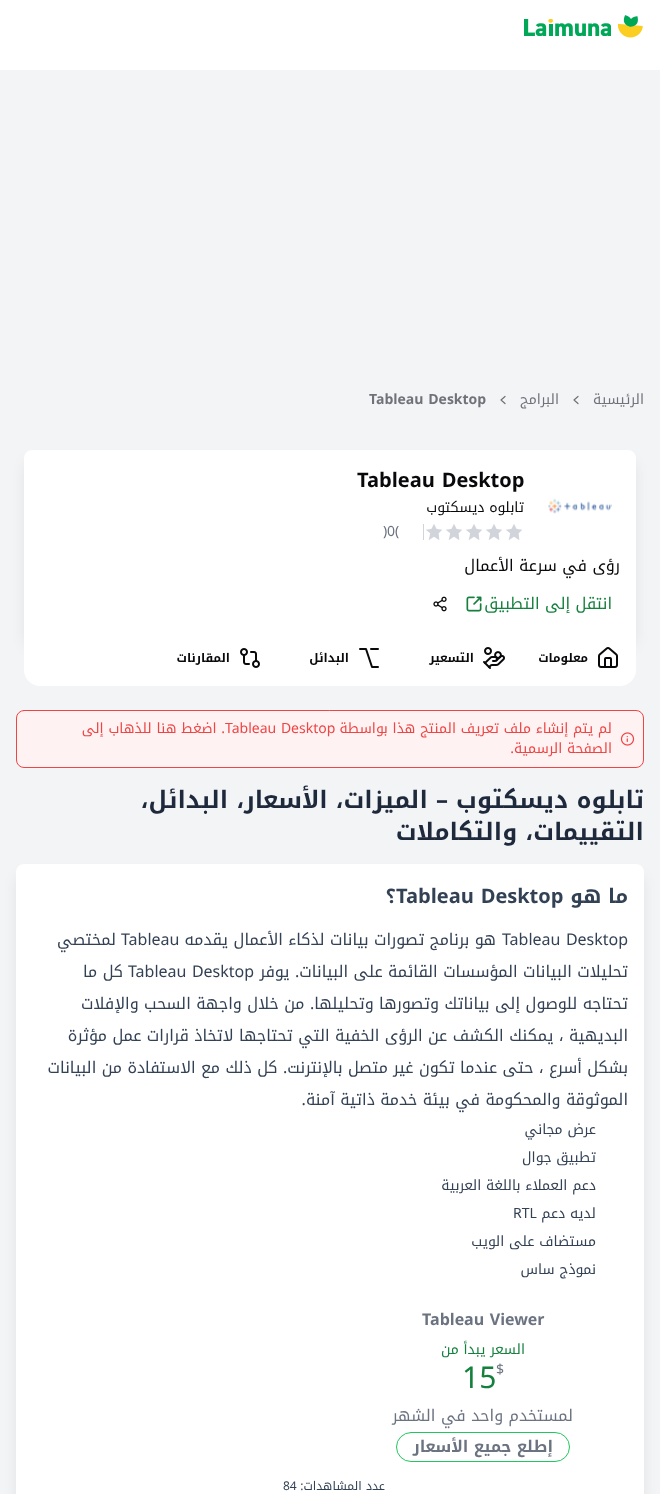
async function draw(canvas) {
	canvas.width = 660;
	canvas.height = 1494;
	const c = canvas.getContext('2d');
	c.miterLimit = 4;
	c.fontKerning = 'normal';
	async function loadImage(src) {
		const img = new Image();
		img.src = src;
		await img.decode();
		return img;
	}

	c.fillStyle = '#fff';
	c.fillRect(0, 0, 660, 1494);
	c.fillStyle = '#f3f4f6';
	c.fillRect(0, 70, 660, 1424);
	c.drawImage(await loadImage('img1.png'), 524, 15, 119, 23);
	c.direction = 'rtl';
	c.font = '14px Noto Kufi Arabic';
	c.fillStyle = '#71717a';
	c.fillText('الرئيسية', 644, 404);
	c.beginPath();
	c.moveTo(578, 403.5);
	c.lineTo(574, 400);
	c.lineTo(578, 396.5);
	c.strokeStyle = '#71717a';
	c.lineWidth = 1.2;
	c.lineCap = 'round';
	c.lineJoin = 'round';
	c.stroke();
	c.fillText('البرامج', 559, 404);
	c.beginPath();
	c.moveTo(505, 403.5);
	c.lineTo(501, 400);
	c.lineTo(505, 396.5);
	c.stroke();
	c.direction = 'ltr';
	c.font = 'bold 14px Noto Kufi Arabic';
	c.fillText('Tableau Desktop', 369, 404);
	c.fillStyle = '#0000001a';
	c.filter = 'blur(7.5px)';
	c.beginPath();
	c.roundRect(27, 463, 606, 182, 5);
	c.fill();
	c.filter = 'none';
	c.fillStyle = '#fff';
	c.beginPath();
	c.roundRect(24, 450, 612, 188, 8);
	c.fill();
	c.drawImage(await loadImage('img2.png'), 548, 498, 64, 16);
	c.font = 'bold 20px Noto Kufi Arabic';
	c.fillStyle = '#09090b';
	c.fillText('Tableau Desktop', 357, 487);
	c.direction = 'rtl';
	c.font = '14px Noto Kufi Arabic';
	c.fillText('تابلوه ديسكتوب', 524, 512);
	c.drawImage(await loadImage('img3.png'), 506, 524, 16, 16);
	c.drawImage(await loadImage('img3.png'), 486, 524, 16, 16);
	c.drawImage(await loadImage('img3.png'), 466, 524, 16, 16);
	c.drawImage(await loadImage('img3.png'), 446, 524, 16, 16);
	c.drawImage(await loadImage('img3.png'), 426, 524, 16, 16);
	c.fillStyle = '#d1d5db';
	c.fillRect(423, 524, 1, 16);
	c.direction = 'ltr';
	c.fillStyle = '#6b7280';
	for (const [text, x, y] of [
		['(', 395, 536],
		['0', 387, 536],
		[')', 383, 536],
	]) {
		c.fillText(text, x, y);
	}
	c.direction = 'rtl';
	c.font = '16px Noto Kufi Arabic';
	c.fillStyle = '#09090b';
	c.fillText('رؤى في سرعة الأعمال', 620, 571);
	c.fillStyle = '#15803d';
	c.fillText('انتقل إلى التطبيق', 612, 609);
	c.drawImage(await loadImage('img4.png'), 466, 596, 16, 16);
	c.drawImage(await loadImage('img5.png'), 433, 596, 14, 16);
	c.fillStyle = '#fff';
	c.beginPath();
	c.roundRect(24, 614, 612, 72, 16);
	c.fill();
	c.drawImage(await loadImage('img6.png'), 598, 647, 20, 21);
	c.font = 'bold 12px Noto Kufi Arabic';
	c.fillStyle = '#09090b';
	c.fillText('معلومات', 588, 662);
	c.drawImage(await loadImage('img7.png'), 483, 647, 22, 22);
	c.fillText('التسعير', 474, 662);
	c.beginPath();
	c.moveTo(360, 649);
	c.lineTo(366, 649);
	c.lineTo(372, 667);
	c.lineTo(378, 667);
	c.moveTo(371, 649);
	c.lineTo(378, 649);
	c.strokeStyle = '#09090b';
	c.lineWidth = 2;
	c.stroke();
	c.fillText('البدائل', 349, 662);
	c.drawImage(await loadImage('img8.png'), 240, 648, 20, 20);
	c.fillText('المقارنات', 230, 662);
	c.fillStyle = '#fef2f2';
	c.beginPath();
	c.roundRect(16.5, 710.5, 627, 57, 7.5);
	c.fill();
	c.strokeStyle = '#ef4444';
	c.lineWidth = 1;
	c.lineJoin = 'miter';
	c.stroke();
	c.drawImage(await loadImage('img9.png'), 620, 732, 15, 14);
	c.font = '14px Noto Kufi Arabic';
	c.fillStyle = '#ef4444';
	c.fillText('لم يتم إنشاء ملف تعريف المنتج هذا بواسطة', 612, 733);
	c.direction = 'ltr';
	c.fillText('Tableau Desktop', 225, 733);
	c.direction = 'rtl';
	c.fillText('. اضغط هنا للذهاب إلى', 225, 733);
	c.fillText('الصفحة الرسمية.', 612, 753);
	c.font = 'bold 24px Noto Kufi Arabic';
	c.fillStyle = '#1e293b';
	c.fillText('تابلوه ديسكتوب – الميزات، الأسعار، البدائل،', 644, 808);
	c.fillText('التقييمات، والتكاملات', 644, 840);
	c.fillStyle = '#0000001a';
	c.filter = 'blur(7.5px)';
	c.beginPath();
	c.roundRect(19, 877, 622, 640, 5);
	c.fill();
	c.filter = 'none';
	c.fillStyle = '#fff';
	c.beginPath();
	c.roundRect(16, 864, 628, 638, 8);
	c.fill();
	c.font = 'bold 20px Noto Kufi Arabic';
	c.fillStyle = '#334155';
	c.fillText('ما هو', 628, 903);
	c.direction = 'ltr';
	c.fillText('Tableau Desktop', 396, 903);
	c.direction = 'rtl';
	c.fillText('؟', 396, 903);
	c.direction = 'ltr';
	c.font = '16px Noto Kufi Arabic';
	c.fillText('Tableau Desktop', 502, 945);
	c.direction = 'rtl';
	c.fillText('هو برنامج تصورات بيانات لذكاء الأعمال يقدمه', 496, 945);
	c.direction = 'ltr';
	c.fillText('Tableau', 121, 945);
	c.direction = 'rtl';
	c.fillText('لمختصي', 116, 945);
	c.fillText('تحليلات البيانات المؤسسات القائمة على البيانات. يوفر', 628, 977);
	c.direction = 'ltr';
	c.fillText('Tableau Desktop', 128, 977);
	c.direction = 'rtl';
	for (const [text, x, y] of [
		['كل ما', 123, 977],
		['تحتاجه للوصول إلى بياناتك وتصورها وتحليلها. من خلال واجهة السحب والإفلات', 628, 1009],
		['البديهية ، يمكنك الكشف عن الرؤى الخفية التي تحتاجها لاتخاذ قرارات عمل مؤثرة', 628, 1041],
		['بشكل أسرع ، حتى عندما تكون غير متصل بالإنترنت. كل ذلك مع الاستفادة من البيانات', 628, 1073],
		['الموثوقة والمحكومة في بيئة خدمة ذاتية آمنة.', 628, 1105],
	]) {
		c.fillText(text, x, y);
	}
	c.font = '14px Noto Kufi Arabic';
	for (const [text, x, y] of [
		['عرض مجاني', 596, 1134],
		['تطبيق جوال', 596, 1162],
		['دعم العملاء باللغة العربية', 596, 1190],
		['لديه دعم', 596, 1218],
	]) {
		c.fillText(text, x, y);
	}
	c.direction = 'ltr';
	c.fillText('RTL', 513, 1218);
	c.direction = 'rtl';
	c.fillText('مستضاف على الويب', 596, 1246);
	c.fillText('نموذج ساس', 596, 1274);
	c.direction = 'ltr';
	c.font = 'bold 16px Noto Kufi Arabic';
	c.fillStyle = '#6b7280';
	c.fillText('Tableau Viewer', 422, 1325);
	c.direction = 'rtl';
	c.font = '14px Noto Kufi Arabic';
	c.fillStyle = '#15803d';
	c.fillText('السعر يبدأ من', 525, 1354);
	c.direction = 'ltr';
	c.fillStyle = '#6b7280';
	c.fillText('$', 496, 1374);
	c.font = '30px Noto Kufi Arabic';
	c.fillStyle = '#15803d';
	c.fillText('15', 462, 1388);
	c.direction = 'rtl';
	c.font = '16px Noto Kufi Arabic';
	c.fillStyle = '#6b7280';
	c.fillText('لمستخدم واحد في الشهر', 573, 1421);
	c.beginPath();
	c.roundRect(396.5, 1432.5, 173, 29, 14.5);
	c.strokeStyle = '#22c55e';
	c.stroke();
	c.font = 'bold 16px "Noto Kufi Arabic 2"';
	c.fillText('إطلع جميع الأسعار', 553, 1452);
	c.font = '12px Noto Kufi Arabic';
	c.fillStyle = '#334155';
	c.fillText('عدد المشاهدات:', 385, 1490);
	c.direction = 'ltr';
	c.fillText('84', 283, 1490);
}

draw(document.querySelector('canvas'));
